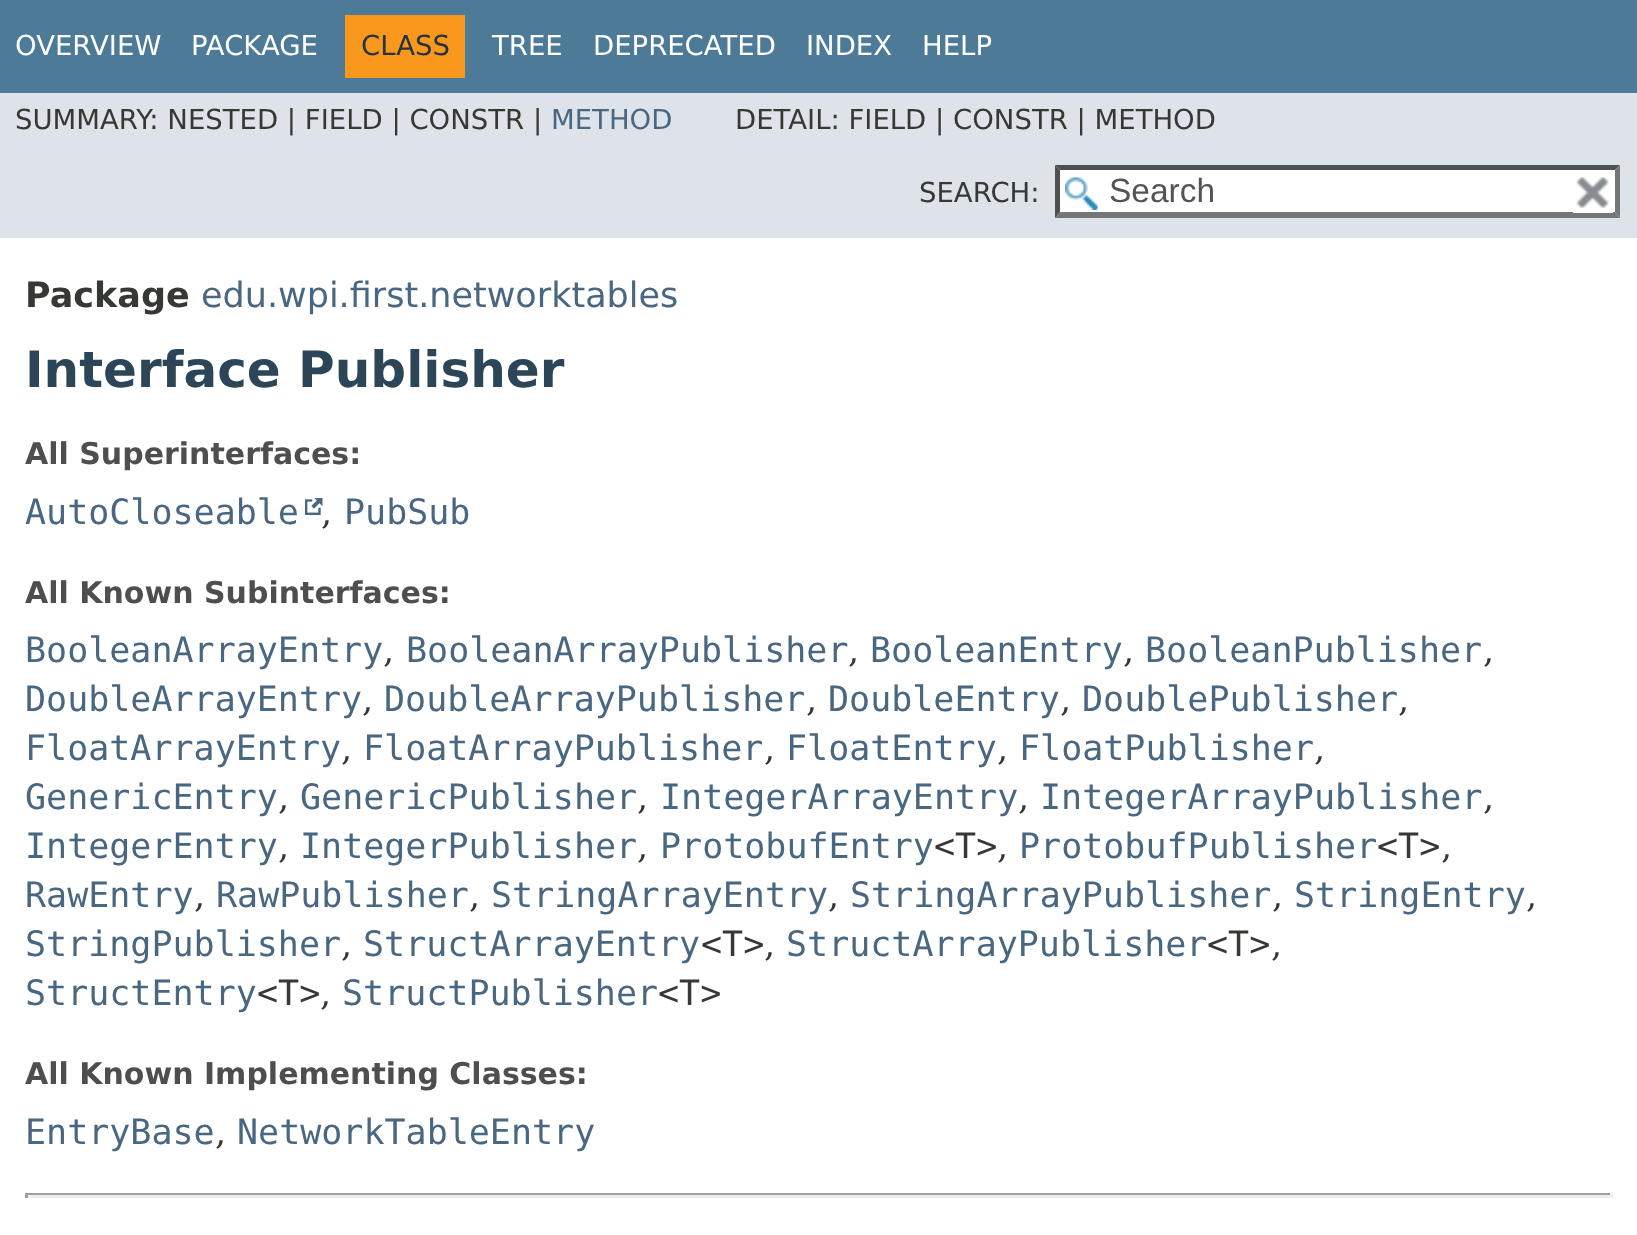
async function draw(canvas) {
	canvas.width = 1637;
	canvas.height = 1235;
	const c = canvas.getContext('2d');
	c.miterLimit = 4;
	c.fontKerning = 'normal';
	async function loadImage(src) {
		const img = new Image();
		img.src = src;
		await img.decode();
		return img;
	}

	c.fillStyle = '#fff';
	c.fillRect(0, 0, 1637, 1235);
	c.fillStyle = '#4d7a97';
	c.fillRect(0, 0, 1637, 93);
	c.font = '27.5px DejaVu Sans';
	c.fillStyle = '#fff';
	c.fillText('OVERVIEW', 15, 55);
	c.fillText('PACKAGE', 191, 55);
	c.fillStyle = '#f8981d';
	c.fillRect(345, 15, 120, 63);
	c.fillStyle = '#253441';
	c.fillText('CLASS', 361, 55);
	c.fillStyle = '#fff';
	for (const [text, x, y] of [
		['TREE', 492, 55],
		['DEPRECATED', 593, 55],
		['INDEX', 806, 55],
		['HELP', 922, 55],
	]) {
		c.fillText(text, x, y);
	}
	c.fillStyle = '#dee3e9';
	c.fillRect(0, 93, 1637, 145);
	c.fillStyle = '#353833';
	c.fillText('SUMMARY: NESTED | FIELD | CONSTR |', 15, 129);
	c.fillStyle = '#4a6782';
	c.fillText('METHOD', 551, 129);
	c.fillStyle = '#353833';
	c.fillText('DETAIL: FIELD | CONSTR | METHOD', 735, 129);
	c.fillText('SEARCH:', 919, 202);
	c.fillStyle = '#fff';
	c.fillRect(1055, 165, 565, 53);
	c.drawImage(await loadImage('img1.png'), 1065, 177, 33, 33);
	c.fillStyle = '#4f4f4f';
	c.beginPath();
	c.moveTo(1055, 165);
	c.lineTo(1620, 165);
	c.lineTo(1615, 170);
	c.lineTo(1060, 170);
	c.closePath();
	c.fill();
	c.fillStyle = '#767676';
	c.beginPath();
	c.moveTo(1620, 165);
	c.lineTo(1620, 218);
	c.lineTo(1615, 212);
	c.lineTo(1615, 170);
	c.closePath();
	c.fill();
	c.beginPath();
	c.moveTo(1620, 218);
	c.lineTo(1055, 218);
	c.lineTo(1060, 212);
	c.lineTo(1615, 212);
	c.closePath();
	c.fill();
	c.fillStyle = '#4f4f4f';
	c.beginPath();
	c.moveTo(1055, 218);
	c.lineTo(1055, 165);
	c.lineTo(1060, 170);
	c.lineTo(1060, 212);
	c.closePath();
	c.fill();
	c.font = '33.5px Liberation Sans';
	c.fillStyle = '#545454';
	c.fillText('Search', 1109, 202);
	c.fillStyle = '#fff';
	c.fillRect(1573, 212, 40, 1);
	c.drawImage(await loadImage('img2.png'), 1576, 177, 33, 31);
	c.font = 'bold 35px DejaVu Sans';
	c.fillStyle = '#353833';
	c.fillText('Package', 25, 307);
	c.font = '35px DejaVu Sans';
	c.fillStyle = '#4a6782';
	c.fillText('edu.wpi.first.networktables', 201, 307);
	c.font = 'bold 50px DejaVu Sans';
	c.fillStyle = '#2c4557';
	c.fillText('Interface Publisher', 25, 387);
	c.font = 'bold 30px DejaVu Sans';
	c.fillStyle = '#4e4e4e';
	c.fillText('All Superinterfaces:', 25, 464);
	c.font = '35px DejaVu Sans Mono';
	c.fillStyle = '#4a6782';
	c.fillText('AutoCloseable', 25, 524);
	c.drawImage(await loadImage('img3.png'), 305, 498, 18, 17);
	c.font = '35px DejaVu Serif';
	c.fillStyle = '#353833';
	c.fillText(',', 321, 524);
	c.font = '35px DejaVu Sans Mono';
	c.fillStyle = '#4a6782';
	c.fillText('PubSub', 344, 524);
	c.font = 'bold 30px DejaVu Sans';
	c.fillStyle = '#4e4e4e';
	c.fillText('All Known Subinterfaces:', 25, 603);
	c.font = '35px DejaVu Sans Mono';
	c.fillStyle = '#4a6782';
	c.fillText('BooleanArrayEntry', 25, 662);
	c.font = '35px DejaVu Serif';
	c.fillStyle = '#353833';
	c.fillText(',', 383, 662);
	c.font = '35px DejaVu Sans Mono';
	c.fillStyle = '#4a6782';
	c.fillText('BooleanArrayPublisher', 406, 662);
	c.font = '35px DejaVu Serif';
	c.fillStyle = '#353833';
	c.fillText(',', 848, 662);
	c.font = '35px DejaVu Sans Mono';
	c.fillStyle = '#4a6782';
	c.fillText('BooleanEntry', 870, 662);
	c.font = '35px DejaVu Serif';
	c.fillStyle = '#353833';
	c.fillText(',', 1123, 662);
	c.font = '35px DejaVu Sans Mono';
	c.fillStyle = '#4a6782';
	c.fillText('BooleanPublisher', 1145, 662);
	c.font = '35px DejaVu Serif';
	c.fillStyle = '#353833';
	c.fillText(',', 1483, 662);
	c.font = '35px DejaVu Sans Mono';
	c.fillStyle = '#4a6782';
	c.fillText('DoubleArrayEntry', 25, 711);
	c.font = '35px DejaVu Serif';
	c.fillStyle = '#353833';
	c.fillText(',', 362, 711);
	c.font = '35px DejaVu Sans Mono';
	c.fillStyle = '#4a6782';
	c.fillText('DoubleArrayPublisher', 384, 711);
	c.font = '35px DejaVu Serif';
	c.fillStyle = '#353833';
	c.fillText(',', 806, 711);
	c.font = '35px DejaVu Sans Mono';
	c.fillStyle = '#4a6782';
	c.fillText('DoubleEntry', 828, 711);
	c.font = '35px DejaVu Serif';
	c.fillStyle = '#353833';
	c.fillText(',', 1060, 711);
	c.font = '35px DejaVu Sans Mono';
	c.fillStyle = '#4a6782';
	c.fillText('DoublePublisher', 1082, 711);
	c.font = '35px DejaVu Serif';
	c.fillStyle = '#353833';
	c.fillText(',', 1398, 711);
	c.font = '35px DejaVu Sans Mono';
	c.fillStyle = '#4a6782';
	c.fillText('FloatArrayEntry', 25, 760);
	c.font = '35px DejaVu Serif';
	c.fillStyle = '#353833';
	c.fillText(',', 341, 760);
	c.font = '35px DejaVu Sans Mono';
	c.fillStyle = '#4a6782';
	c.fillText('FloatArrayPublisher', 363, 760);
	c.font = '35px DejaVu Serif';
	c.fillStyle = '#353833';
	c.fillText(',', 764, 760);
	c.font = '35px DejaVu Sans Mono';
	c.fillStyle = '#4a6782';
	c.fillText('FloatEntry', 786, 760);
	c.font = '35px DejaVu Serif';
	c.fillStyle = '#353833';
	c.fillText(',', 997, 760);
	c.font = '35px DejaVu Sans Mono';
	c.fillStyle = '#4a6782';
	c.fillText('FloatPublisher', 1019, 760);
	c.font = '35px DejaVu Serif';
	c.fillStyle = '#353833';
	c.fillText(',', 1314, 760);
	c.font = '35px DejaVu Sans Mono';
	c.fillStyle = '#4a6782';
	c.fillText('GenericEntry', 25, 809);
	c.font = '35px DejaVu Serif';
	c.fillStyle = '#353833';
	c.fillText(',', 278, 809);
	c.font = '35px DejaVu Sans Mono';
	c.fillStyle = '#4a6782';
	c.fillText('GenericPublisher', 300, 809);
	c.font = '35px DejaVu Serif';
	c.fillStyle = '#353833';
	c.fillText(',', 637, 809);
	c.font = '35px DejaVu Sans Mono';
	c.fillStyle = '#4a6782';
	c.fillText('IntegerArrayEntry', 660, 809);
	c.font = '35px DejaVu Serif';
	c.fillStyle = '#353833';
	c.fillText(',', 1018, 809);
	c.font = '35px DejaVu Sans Mono';
	c.fillStyle = '#4a6782';
	c.fillText('IntegerArrayPublisher', 1040, 809);
	c.font = '35px DejaVu Serif';
	c.fillStyle = '#353833';
	c.fillText(',', 1483, 809);
	c.font = '35px DejaVu Sans Mono';
	c.fillStyle = '#4a6782';
	c.fillText('IntegerEntry', 25, 858);
	c.font = '35px DejaVu Serif';
	c.fillStyle = '#353833';
	c.fillText(',', 278, 858);
	c.font = '35px DejaVu Sans Mono';
	c.fillStyle = '#4a6782';
	c.fillText('IntegerPublisher', 300, 858);
	c.font = '35px DejaVu Serif';
	c.fillStyle = '#353833';
	c.fillText(',', 637, 858);
	c.font = '35px DejaVu Sans Mono';
	c.fillStyle = '#4a6782';
	c.fillText('ProtobufEntry', 660, 858);
	c.fillStyle = '#353833';
	c.fillText('<T>', 934, 858);
	c.font = '35px DejaVu Serif';
	c.fillText(',', 997, 858);
	c.font = '35px DejaVu Sans Mono';
	c.fillStyle = '#4a6782';
	c.fillText('ProtobufPublisher', 1019, 858);
	c.fillStyle = '#353833';
	c.fillText('<T>', 1377, 858);
	c.font = '35px DejaVu Serif';
	c.fillText(',', 1441, 858);
	c.font = '35px DejaVu Sans Mono';
	c.fillStyle = '#4a6782';
	c.fillText('RawEntry', 25, 907);
	c.font = '35px DejaVu Serif';
	c.fillStyle = '#353833';
	c.fillText(',', 194, 907);
	c.font = '35px DejaVu Sans Mono';
	c.fillStyle = '#4a6782';
	c.fillText('RawPublisher', 216, 907);
	c.font = '35px DejaVu Serif';
	c.fillStyle = '#353833';
	c.fillText(',', 469, 907);
	c.font = '35px DejaVu Sans Mono';
	c.fillStyle = '#4a6782';
	c.fillText('StringArrayEntry', 491, 907);
	c.font = '35px DejaVu Serif';
	c.fillStyle = '#353833';
	c.fillText(',', 828, 907);
	c.font = '35px DejaVu Sans Mono';
	c.fillStyle = '#4a6782';
	c.fillText('StringArrayPublisher', 850, 907);
	c.font = '35px DejaVu Serif';
	c.fillStyle = '#353833';
	c.fillText(',', 1272, 907);
	c.font = '35px DejaVu Sans Mono';
	c.fillStyle = '#4a6782';
	c.fillText('StringEntry', 1294, 907);
	c.font = '35px DejaVu Serif';
	c.fillStyle = '#353833';
	c.fillText(',', 1526, 907);
	c.font = '35px DejaVu Sans Mono';
	c.fillStyle = '#4a6782';
	c.fillText('StringPublisher', 25, 956);
	c.font = '35px DejaVu Serif';
	c.fillStyle = '#353833';
	c.fillText(',', 341, 956);
	c.font = '35px DejaVu Sans Mono';
	c.fillStyle = '#4a6782';
	c.fillText('StructArrayEntry', 363, 956);
	c.fillStyle = '#353833';
	c.fillText('<T>', 701, 956);
	c.font = '35px DejaVu Serif';
	c.fillText(',', 764, 956);
	c.font = '35px DejaVu Sans Mono';
	c.fillStyle = '#4a6782';
	c.fillText('StructArrayPublisher', 786, 956);
	c.fillStyle = '#353833';
	c.fillText('<T>', 1207, 956);
	c.font = '35px DejaVu Serif';
	c.fillText(',', 1271, 956);
	c.font = '35px DejaVu Sans Mono';
	c.fillStyle = '#4a6782';
	c.fillText('StructEntry', 25, 1005);
	c.fillStyle = '#353833';
	c.fillText('<T>', 257, 1005);
	c.font = '35px DejaVu Serif';
	c.fillText(',', 320, 1005);
	c.font = '35px DejaVu Sans Mono';
	c.fillStyle = '#4a6782';
	c.fillText('StructPublisher', 342, 1005);
	c.fillStyle = '#353833';
	c.fillText('<T>', 658, 1005);
	c.font = 'bold 30px DejaVu Sans';
	c.fillStyle = '#4e4e4e';
	c.fillText('All Known Implementing Classes:', 25, 1084);
	c.font = '35px DejaVu Sans Mono';
	c.fillStyle = '#4a6782';
	c.fillText('EntryBase', 25, 1144);
	c.font = '35px DejaVu Serif';
	c.fillStyle = '#353833';
	c.fillText(',', 215, 1144);
	c.font = '35px DejaVu Sans Mono';
	c.fillStyle = '#4a6782';
	c.fillText('NetworkTableEntry', 237, 1144);
	for (const [x, y, w, h, color] of [
		[25, 1193, 1588, 2, '#9f9f9f'],
		[1610, 1193, 3, 5, '#eee'],
		[25, 1195, 1588, 3, '#eee'],
		[25, 1193, 3, 5, '#9f9f9f'],
	]) {
		c.fillStyle = color;
		c.fillRect(x, y, w, h);
	}
}

draw(document.querySelector('canvas'));
